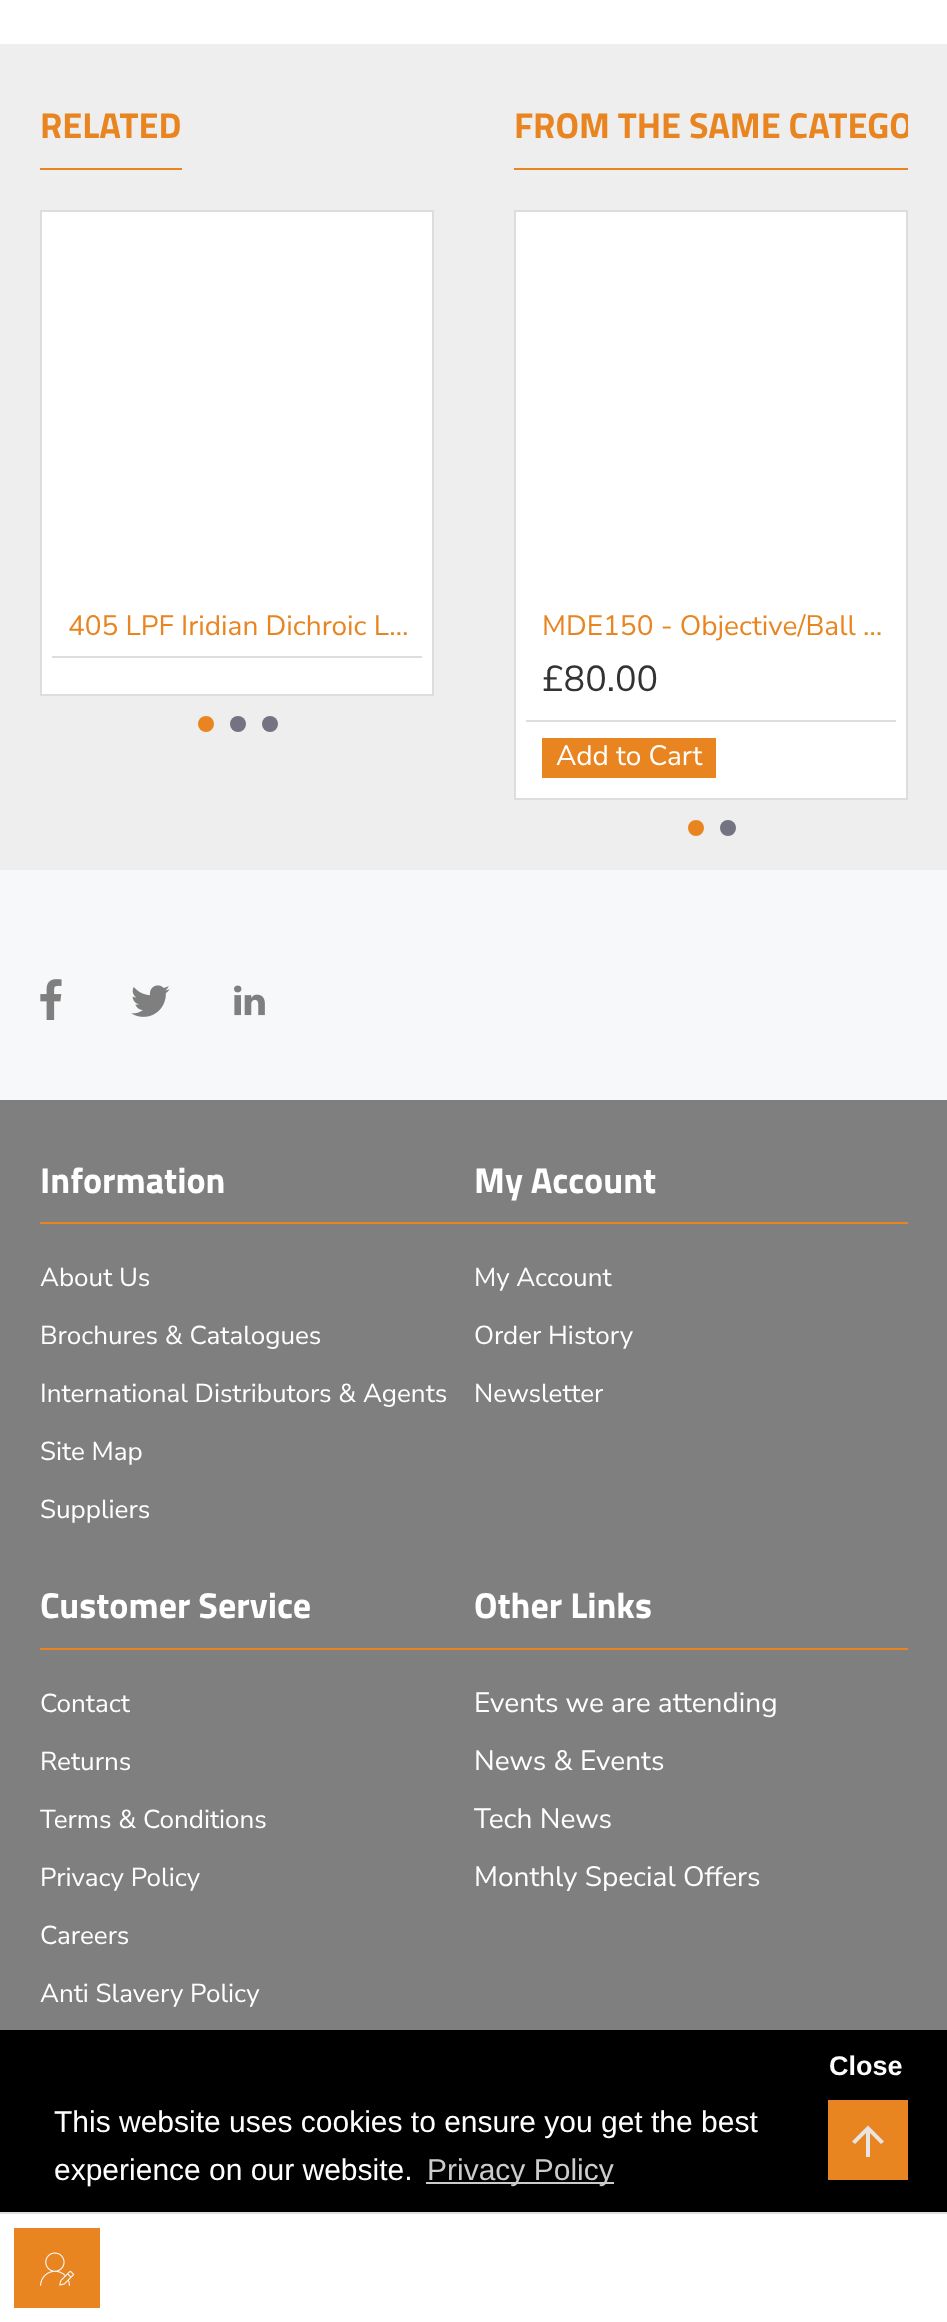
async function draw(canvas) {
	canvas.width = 947;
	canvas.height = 2322;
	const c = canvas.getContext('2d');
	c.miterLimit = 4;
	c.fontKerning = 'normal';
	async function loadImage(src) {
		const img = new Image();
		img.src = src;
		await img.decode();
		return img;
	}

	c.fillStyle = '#fff';
	c.fillRect(0, 0, 947, 2322);
	c.fillStyle = '#eee';
	c.fillRect(0, 44, 947, 826);
	c.fillStyle = '#e98521';
	c.fillRect(40, 168, 142, 2);
	c.font = 'bold 36px Titillium Web';
	c.fillText('RELATED', 40, 138);
	c.fillStyle = '#fff';
	c.beginPath();
	c.rect(41, 211, 392, 484);
	c.fill();
	c.strokeStyle = '#ddd';
	c.lineWidth = 2;
	c.stroke();
	c.font = '200 28px Nunito Sans';
	c.fillStyle = '#e98521';
	c.fillText('405 LPF Iridian Dichroic L…', 68, 635);
	c.fillStyle = '#ddd';
	c.fillRect(52, 656, 370, 2);
	c.fillStyle = '#e98521';
	c.beginPath();
	c.arc(206, 724, 8, 0, 2 * Math.PI);
	c.fill();
	c.fillStyle = '#737381';
	c.beginPath();
	c.arc(238, 724, 8, 0, 2 * Math.PI);
	c.fill();
	c.beginPath();
	c.arc(270, 724, 8, 0, 2 * Math.PI);
	c.fill();
	c.fillStyle = '#e98521';
	c.fillRect(514, 168, 394, 2);
	c.save();
	c.beginPath();
	c.rect(514, 104, 394, 66);
	c.clip();
	c.font = 'bold 36px Titillium Web';
	c.fillText('FROM THE SAME CATEGO', 514, 138);
	c.restore();
	c.fillStyle = '#fff';
	c.beginPath();
	c.rect(515, 211, 392, 588);
	c.fill();
	c.stroke();
	c.fillStyle = '#e98521';
	c.fillText('MDE150 - Objective/Ball …', 542, 635);
	c.font = '200 36px Nunito Sans';
	c.fillStyle = '#333';
	c.fillText('£80.00', 542, 691);
	c.fillStyle = '#ddd';
	c.fillRect(526, 720, 370, 2);
	c.fillStyle = '#e98521';
	c.fillRect(542, 738, 174, 40);
	c.font = '200 28px Nunito Sans';
	c.fillStyle = '#fff';
	c.fillText('Add to Cart', 556, 765);
	c.fillStyle = '#e98521';
	c.beginPath();
	c.arc(696, 828, 8, 0, 2 * Math.PI);
	c.fill();
	c.fillStyle = '#737381';
	c.beginPath();
	c.arc(728, 828, 8, 0, 2 * Math.PI);
	c.fill();
	c.fillStyle = '#f7f8fa';
	c.fillRect(0, 870, 947, 230);
	c.drawImage(await loadImage('img1.png'), 40, 979, 22, 41);
	c.drawImage(await loadImage('img2.png'), 131, 985, 39, 32);
	c.drawImage(await loadImage('img3.png'), 234, 985, 31, 31);
	c.fillStyle = '#7f7f7f';
	c.fillRect(0, 1100, 947, 930);
	c.font = 'bold 36px Titillium Web';
	c.fillStyle = '#fff';
	c.fillText('Information', 40, 1193);
	c.fillStyle = '#e98521';
	c.fillRect(40, 1222, 868, 2);
	c.font = '200 26px Nunito Sans';
	c.fillStyle = '#fff';
	for (const [text, x, y] of [
		['About Us', 40, 1286],
		['Brochures & Catalogues', 40, 1344],
		['International Distributors & Agents', 40, 1402],
		['Site Map', 40, 1460],
		['Suppliers', 40, 1518],
	]) {
		c.fillText(text, x, y);
	}
	c.font = 'bold 36px Titillium Web';
	c.fillText('My Account', 474, 1193);
	c.font = '200 26px Nunito Sans';
	for (const [text, x, y] of [
		['My Account', 474, 1286],
		['Order History', 474, 1344],
		['Newsletter', 474, 1402],
	]) {
		c.fillText(text, x, y);
	}
	c.font = 'bold 36px Titillium Web';
	c.fillText('Customer Service', 40, 1618);
	c.fillStyle = '#e98521';
	c.fillRect(40, 1648, 868, 2);
	c.font = '200 26px Nunito Sans';
	c.fillStyle = '#fff';
	for (const [text, x, y] of [
		['Contact', 40, 1712],
		['Returns', 40, 1770],
		['Terms & Conditions', 40, 1828],
		['Privacy Policy', 40, 1886],
		['Careers', 40, 1944],
		['Anti Slavery Policy', 40, 2002],
	]) {
		c.fillText(text, x, y);
	}
	c.font = 'bold 36px Titillium Web';
	c.fillText('Other Links', 474, 1618);
	c.font = '200 28px Nunito Sans';
	for (const [text, x, y] of [
		['Events we are attending', 474, 1712],
		['News & Events', 474, 1770],
		['Tech News', 474, 1828],
		['Monthly Special Offers', 474, 1886],
	]) {
		c.fillText(text, x, y);
	}
	c.fillStyle = '#ddd';
	c.fillRect(0, 2212, 947, 2);
	c.fillStyle = '#e98521';
	c.fillRect(14, 2228, 86, 80);
	c.drawImage(await loadImage('img4.png'), 40, 2252, 34, 34);
	c.fillStyle = '#000';
	c.fillRect(0, 2030, 947, 182);
	c.font = 'bold 27px Liberation Sans';
	c.fillStyle = '#fff';
	c.fillText('Close', 829, 2075);
	c.font = '30px Liberation Sans';
	c.fillText('This website uses cookies to ensure you get the best', 54, 2132);
	c.fillText('experience on our website.', 54, 2180);
	c.fillStyle = '#ccc';
	c.fillRect(426, 2182, 188, 2);
	c.fillText('Privacy Policy', 427, 2180);
	c.fillStyle = '#e98521';
	c.fillRect(828, 2100, 80, 80);
	c.fillStyle = '#e6e6e6';
	c.beginPath();
	c.moveTo(852, 2141.5);
	c.lineTo(868, 2125.5);
	c.lineTo(884, 2141.5);
	c.lineTo(881, 2144);
	c.lineTo(870, 2133);
	c.lineTo(870, 2157);
	c.lineTo(866, 2157);
	c.lineTo(866, 2133);
	c.lineTo(855, 2144);
	c.closePath();
	c.fill();
}

draw(document.querySelector('canvas'));
